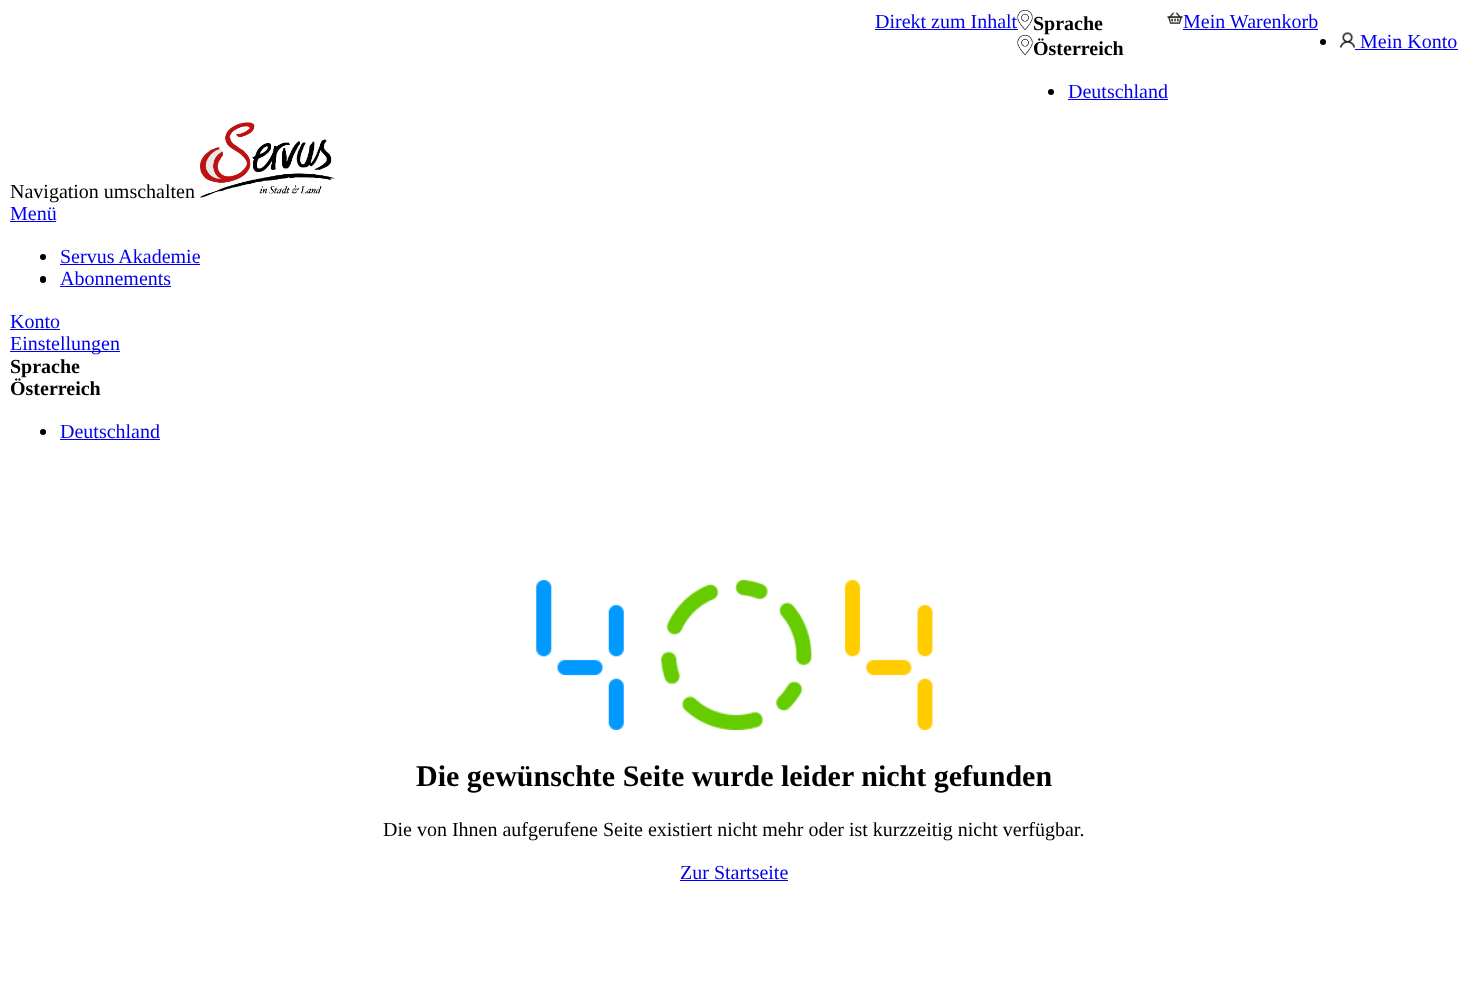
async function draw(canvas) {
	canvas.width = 1467;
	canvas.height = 982;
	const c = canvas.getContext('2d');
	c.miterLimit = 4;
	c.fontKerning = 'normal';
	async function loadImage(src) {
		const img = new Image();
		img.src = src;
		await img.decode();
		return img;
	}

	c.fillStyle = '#fff';
	c.fillRect(0, 0, 1467, 982);
	c.font = '20px Liberation Serif';
	c.fillStyle = '#00e';
	c.fillText('Direkt zum Inhalt', 875, 28);
	c.fillRect(875, 29, 143, 1);
	c.drawImage(await loadImage('img1.png'), 1017, 10, 16, 20);
	c.font = 'bold 20px Liberation Serif';
	c.fillStyle = '#000';
	c.fillText('Sprache', 1033, 30);
	c.drawImage(await loadImage('img2.png'), 1017, 35, 16, 20);
	c.fillText('Österreich', 1033, 55);
	c.beginPath();
	c.arc(1051, 92, 3, 0, 2 * Math.PI);
	c.fill();
	c.font = '20px Liberation Serif';
	c.fillStyle = '#00e';
	c.fillText('Deutschland', 1068, 98);
	c.fillRect(1068, 99, 100, 1);
	c.drawImage(await loadImage('img3.png'), 1167, 12, 16, 12);
	c.fillText('Mein Warenkorb', 1183, 28);
	c.fillRect(1183, 29, 135, 1);
	c.fillStyle = '#000';
	c.beginPath();
	c.arc(1323, 42, 3, 0, 2 * Math.PI);
	c.fill();
	c.drawImage(await loadImage('img4.png'), 1340, 32, 15, 16);
	c.fillStyle = '#00e';
	c.fillText('Mein Konto', 1360, 48);
	c.fillRect(1355, 49, 103, 1);
	c.fillStyle = '#000';
	c.fillText('Navigation umschalten', 10, 198);
	c.drawImage(await loadImage('img5.png'), 200, 122, 135, 76);
	c.fillStyle = '#00e';
	c.fillText('Menü', 10, 220);
	c.fillRect(10, 221, 46, 1);
	c.fillStyle = '#000';
	c.beginPath();
	c.arc(43, 257, 3, 0, 2 * Math.PI);
	c.fill();
	c.fillStyle = '#00e';
	c.fillText('Servus Akademie', 60, 263);
	c.fillRect(60, 264, 140, 1);
	c.fillStyle = '#000';
	c.beginPath();
	c.roundRect(40, 276, 6, 7, 3);
	c.fill();
	c.fillStyle = '#00e';
	c.fillText('Abonnements', 60, 285);
	c.fillRect(60, 286, 111, 1);
	c.fillText('Konto', 10, 328);
	c.fillRect(10, 329, 50, 1);
	c.fillRect(10, 351, 110, 1);
	c.fillText('Einstellungen', 10, 350);
	c.font = 'bold 20px Liberation Serif';
	c.fillStyle = '#000';
	c.fillText('Sprache', 10, 373);
	c.fillText('Österreich', 10, 395);
	c.beginPath();
	c.arc(43, 432, 3, 0, 2 * Math.PI);
	c.fill();
	c.font = '20px Liberation Serif';
	c.fillStyle = '#00e';
	c.fillText('Deutschland', 60, 438);
	c.fillRect(60, 439, 100, 1);
	c.drawImage(await loadImage('img6.png'), 536, 580, 397, 150);
	c.font = 'bold 30px Liberation Serif';
	c.fillStyle = '#000';
	c.fillText('Die gewünschte Seite wurde leider nicht gefunden', 416, 786);
	c.font = '20px Liberation Serif';
	c.fillText('Die von Ihnen aufgerufene Seite existiert nicht mehr oder ist kurzzeitig nicht verfügbar.', 383, 836);
	c.fillStyle = '#00e';
	c.fillText('Zur Startseite', 680, 879);
	c.fillRect(680, 880, 108, 1);
}

draw(document.querySelector('canvas'));
